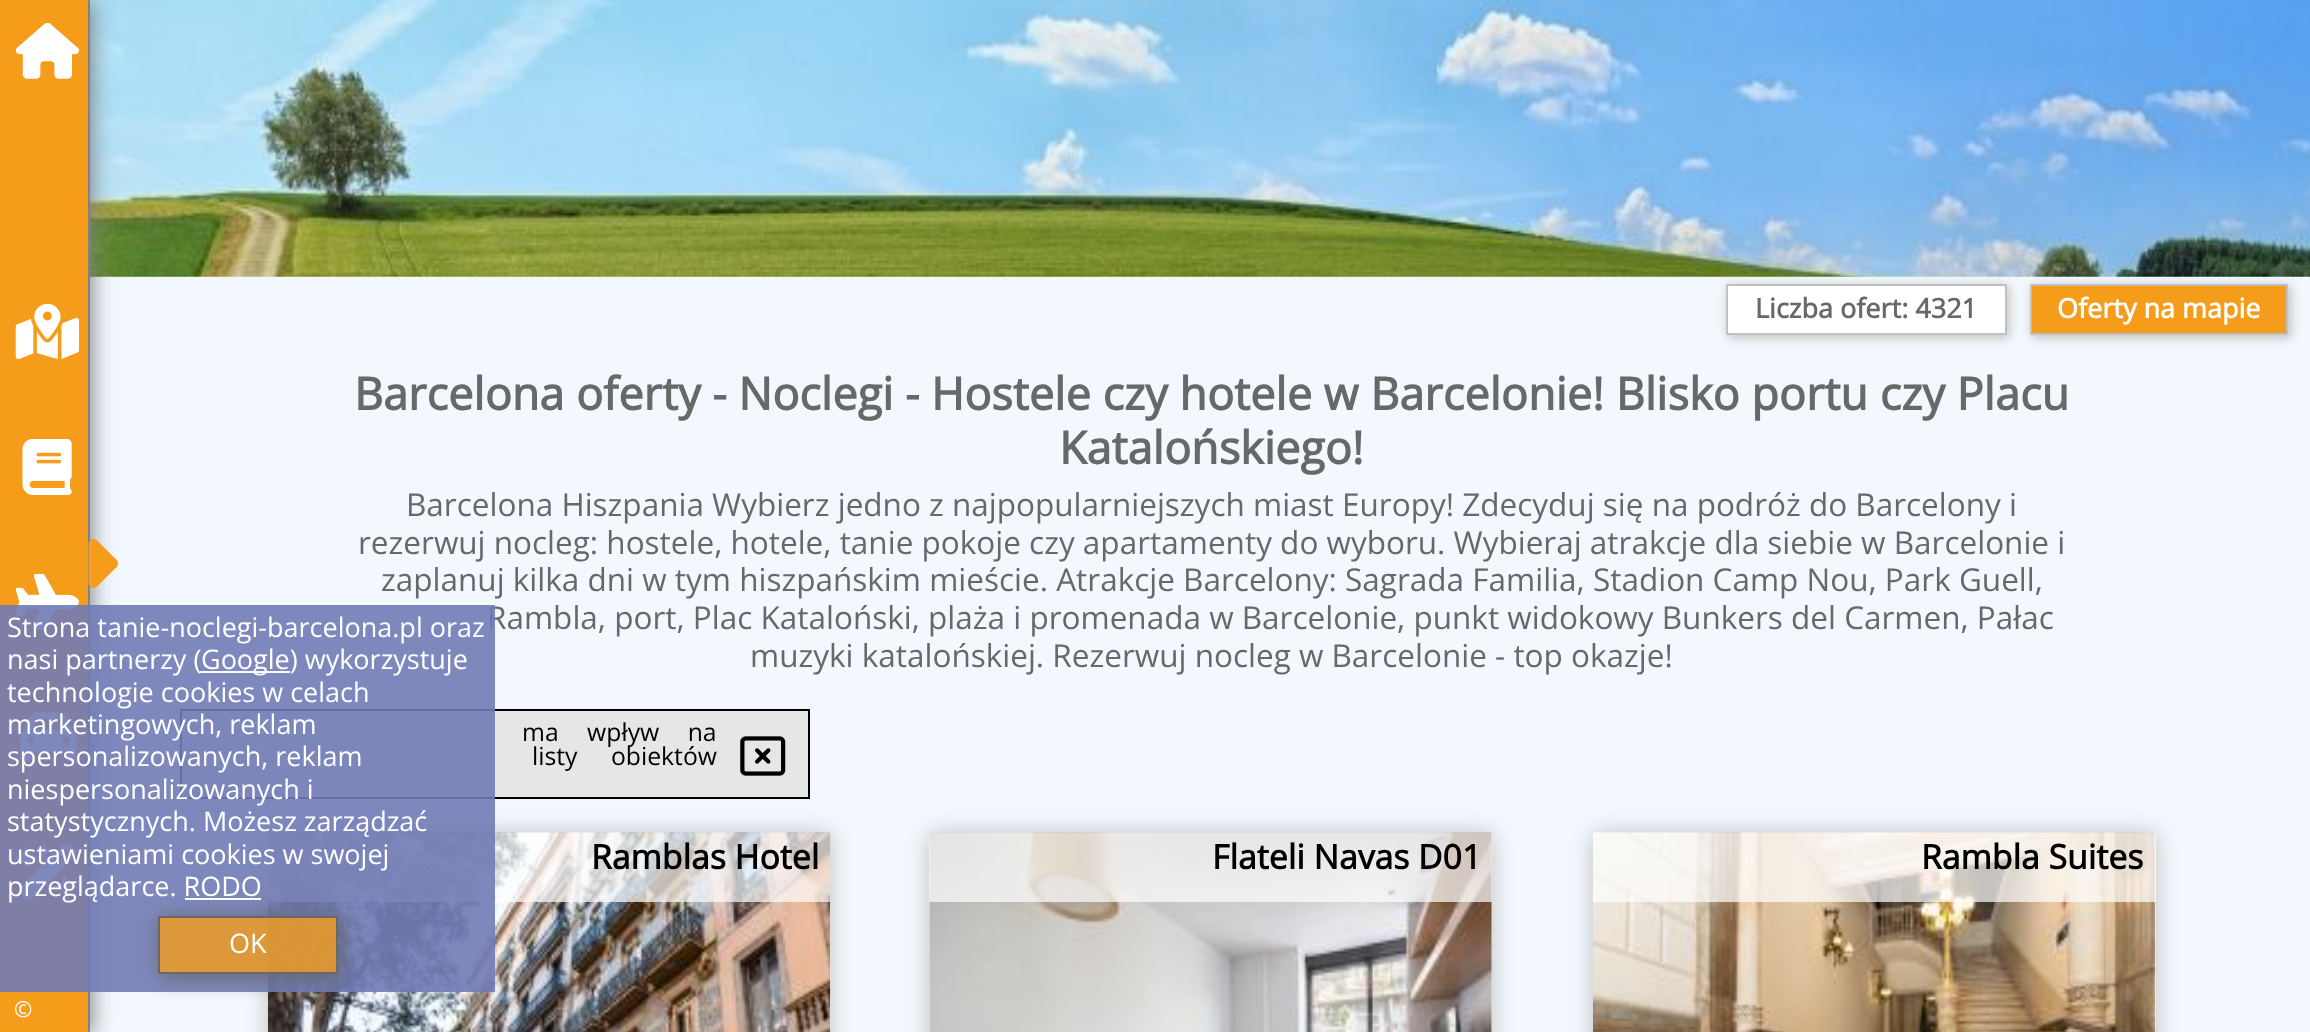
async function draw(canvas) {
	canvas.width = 2310;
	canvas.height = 1032;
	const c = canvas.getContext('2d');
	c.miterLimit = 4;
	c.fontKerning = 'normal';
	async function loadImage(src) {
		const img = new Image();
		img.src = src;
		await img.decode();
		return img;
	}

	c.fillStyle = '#f2f8fd';
	c.fillRect(0, 0, 2310, 1032);
	c.drawImage(await loadImage('img1.png'), 90, 0, 2220, 277);
	c.font = '31.5px Open Sans';
	c.fillStyle = '#676868';
	c.fillText('Rambla, port, Plac Kataloński, plaża i promenada w Barcelonie, punkt widokowy Bunkers del Carmen, Pałac', 487, 629);
	c.fillStyle = '#e6e6e6';
	c.beginPath();
	c.rect(181, 710, 628, 88);
	c.fill();
	c.strokeStyle = '#000';
	c.lineWidth = 2;
	c.stroke();
	c.fillStyle = '#c0c0c0';
	c.filter = 'blur(11px)';
	c.beginPath();
	c.rect(268, 833, 562, 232);
	c.fill();
	c.filter = 'none';
	c.drawImage(await loadImage('img3.png'), 267, 832, 564, 200);
	c.drawImage(await loadImage('img4.png'), 267, 832, 564, 200);
	c.fillStyle = '#ffffffb3';
	c.fillRect(268, 833, 562, 69);
	c.fillStyle = '#828282';
	c.filter = 'blur(11px)';
	c.beginPath();
	c.rect(2, 2, 90, 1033);
	c.fill();
	c.filter = 'none';
	c.fillStyle = '#f59c1a';
	c.fillRect(0, 0, 88, 1032);
	c.fillStyle = '#828282';
	c.fillRect(88, 0, 2, 1032);
	c.drawImage(await loadImage('img13.png'), 15, 574, 64, 56);
	c.drawImage(await loadImage('img14.png'), 20, 712, 57, 50);
	c.drawImage(await loadImage('img15.png'), 15, 844, 61, 56);
	c.fillStyle = '#717bb6e6';
	c.fillRect(0, 605, 495, 387);
	c.font = '27px Open Sans';
	c.fillStyle = '#fff';
	c.fillText('Strona tanie-noclegi-barcelona.pl oraz', 7, 637);
	c.fillText('nasi partnerzy (', 7, 669);
	c.fillRect(200, 671, 90, 2);
	for (const [text, x, y] of [
		['Google) wykorzystuje', 201, 669],
		['technologie cookies w celach', 7, 702],
		['marketingowych, reklam', 7, 734],
		['spersonalizowanych, reklam', 7, 766],
		['niespersonalizowanych i', 7, 799],
		['statystycznych. Możesz zarządzać', 7, 831],
		['ustawieniami cookies w swojej', 7, 864],
	]) {
		c.fillText(text, x, y);
	}
	c.save();
	c.beginPath();
	c.moveTo(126, 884);
	c.lineTo(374, 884);
	c.lineTo(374, 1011);
	c.lineTo(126, 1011);
	c.closePath();
	c.moveTo(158, 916);
	c.lineTo(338, 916);
	c.lineTo(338, 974);
	c.lineTo(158, 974);
	c.closePath();
	c.clip('evenodd');
	c.fillStyle = '#676868';
	c.filter = 'blur(11px)';
	c.beginPath();
	c.rect(160, 918, 180, 59);
	c.fill();
	c.filter = 'none';
	c.restore();
	c.fillText('przeglądarce. RODO', 7, 896);
	c.fillRect(185, 898, 76, 2);
	c.fillStyle = '#f59c1acc';
	c.beginPath();
	c.rect(159, 917, 178, 56);
	c.fill();
	c.strokeStyle = '#676868';
	c.stroke();
	c.fillStyle = '#fff';
	c.fillText('OK', 229, 953);
	c.save();
	c.beginPath();
	c.rect(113, 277, 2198, 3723);
	c.clip();
	c.fillStyle = '#c0c0c0';
	c.filter = 'blur(5.5px)';
	c.beginPath();
	c.rect(1728, 286, 281, 52);
	c.fill();
	c.filter = 'none';
	c.restore();
	c.beginPath();
	c.rect(1727, 285, 279, 49);
	c.fill();
	c.strokeStyle = '#c0c0c0';
	c.stroke();
	c.font = 'bold 27px Open Sans';
	c.fillStyle = '#676868';
	c.fillText('Liczba ofert: 4321', 1755, 318);
	c.save();
	c.beginPath();
	c.rect(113, 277, 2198, 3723);
	c.clip();
	c.fillStyle = '#c0c0c0';
	c.filter = 'blur(5.5px)';
	c.beginPath();
	c.rect(2032, 286, 259, 52);
	c.fill();
	c.filter = 'none';
	c.restore();
	c.fillStyle = '#f59c1a';
	c.beginPath();
	c.rect(2031, 285, 256, 49);
	c.fill();
	c.stroke();
	c.fillStyle = '#fff';
	c.fillText('Oferty na mapie', 2057, 318);
	c.font = 'bold 45px Open Sans';
	c.fillStyle = '#676868';
	c.fillText('Barcelona oferty - Noclegi - Hostele czy hotele w Barcelonie! Blisko portu czy Placu', 354, 410);
	c.fillText('Katalońskiego!', 1059, 464);
	c.font = '31.5px Open Sans';
	for (const [text, x, y] of [
		['Barcelona Hiszpania Wybierz jedno z najpopularniejszych miast Europy! Zdecyduj się na podróż do Barcelony i', 406, 516],
		['rezerwuj nocleg: hostele, hotele, tanie pokoje czy apartamenty do wyboru. Wybieraj atrakcje dla siebie w Barcelonie i', 358, 554],
		['zaplanuj kilka dni w tym hiszpańskim mieście. Atrakcje Barcelony: Sagrada Familia, Stadion Camp Nou, Park Guell,', 381, 591],
		['muzyki katalońskiej. Rezerwuj nocleg w Barcelonie - top okazje!', 750, 667],
	]) {
		c.fillText(text, x, y);
	}
	c.wordSpacing = '22px';
	c.font = '24.75px Open Sans';
	c.fillStyle = '#000';
	c.fillText('ma wpływ na', 522, 741);
	c.drawImage(await loadImage('img2.png'), 740, 736, 46, 40);
	c.wordSpacing = '27px';
	c.fillText('listy obiektów', 532, 765);
	c.wordSpacing = '0px';
	c.font = 'bold 33.75px Open Sans';
	c.fillText('Ramblas Hotel', 591, 869);
	c.fillStyle = '#c0c0c0';
	c.filter = 'blur(11px)';
	c.beginPath();
	c.rect(929, 833, 563, 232);
	c.fill();
	c.filter = 'none';
	c.drawImage(await loadImage('img5.png'), 929, 832, 563, 200);
	c.drawImage(await loadImage('img6.png'), 929, 832, 563, 200);
	c.fillStyle = '#ffffffb3';
	c.fillRect(929, 833, 563, 69);
	c.fillStyle = '#000';
	c.fillText('Flateli Navas D01', 1212, 869);
	c.fillStyle = '#c0c0c0';
	c.filter = 'blur(11px)';
	c.beginPath();
	c.rect(1593, 833, 563, 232);
	c.fill();
	c.filter = 'none';
	c.fillStyle = '#fff';
	c.fillRect(2155, 833, 1, 199);
	c.drawImage(await loadImage('img7.png'), 1593, 832, 563, 200);
	c.drawImage(await loadImage('img8.png'), 1593, 832, 563, 200);
	c.fillStyle = '#ffffffb3';
	c.fillRect(1593, 833, 563, 69);
	c.fillStyle = '#000';
	c.fillText('Rambla Suites', 1921, 869);
	c.drawImage(await loadImage('img9.png'), 15, 23, 64, 56);
	c.drawImage(await loadImage('img10.png'), 15, 304, 65, 56);
	c.drawImage(await loadImage('img11.png'), 22, 439, 50, 56);
	c.drawImage(await loadImage('img12.png'), 88, 539, 31, 49);
	c.font = '22px Open Sans';
	c.fillStyle = '#fff';
	c.fillText('©', 14, 1017);
}

draw(document.querySelector('canvas'));
